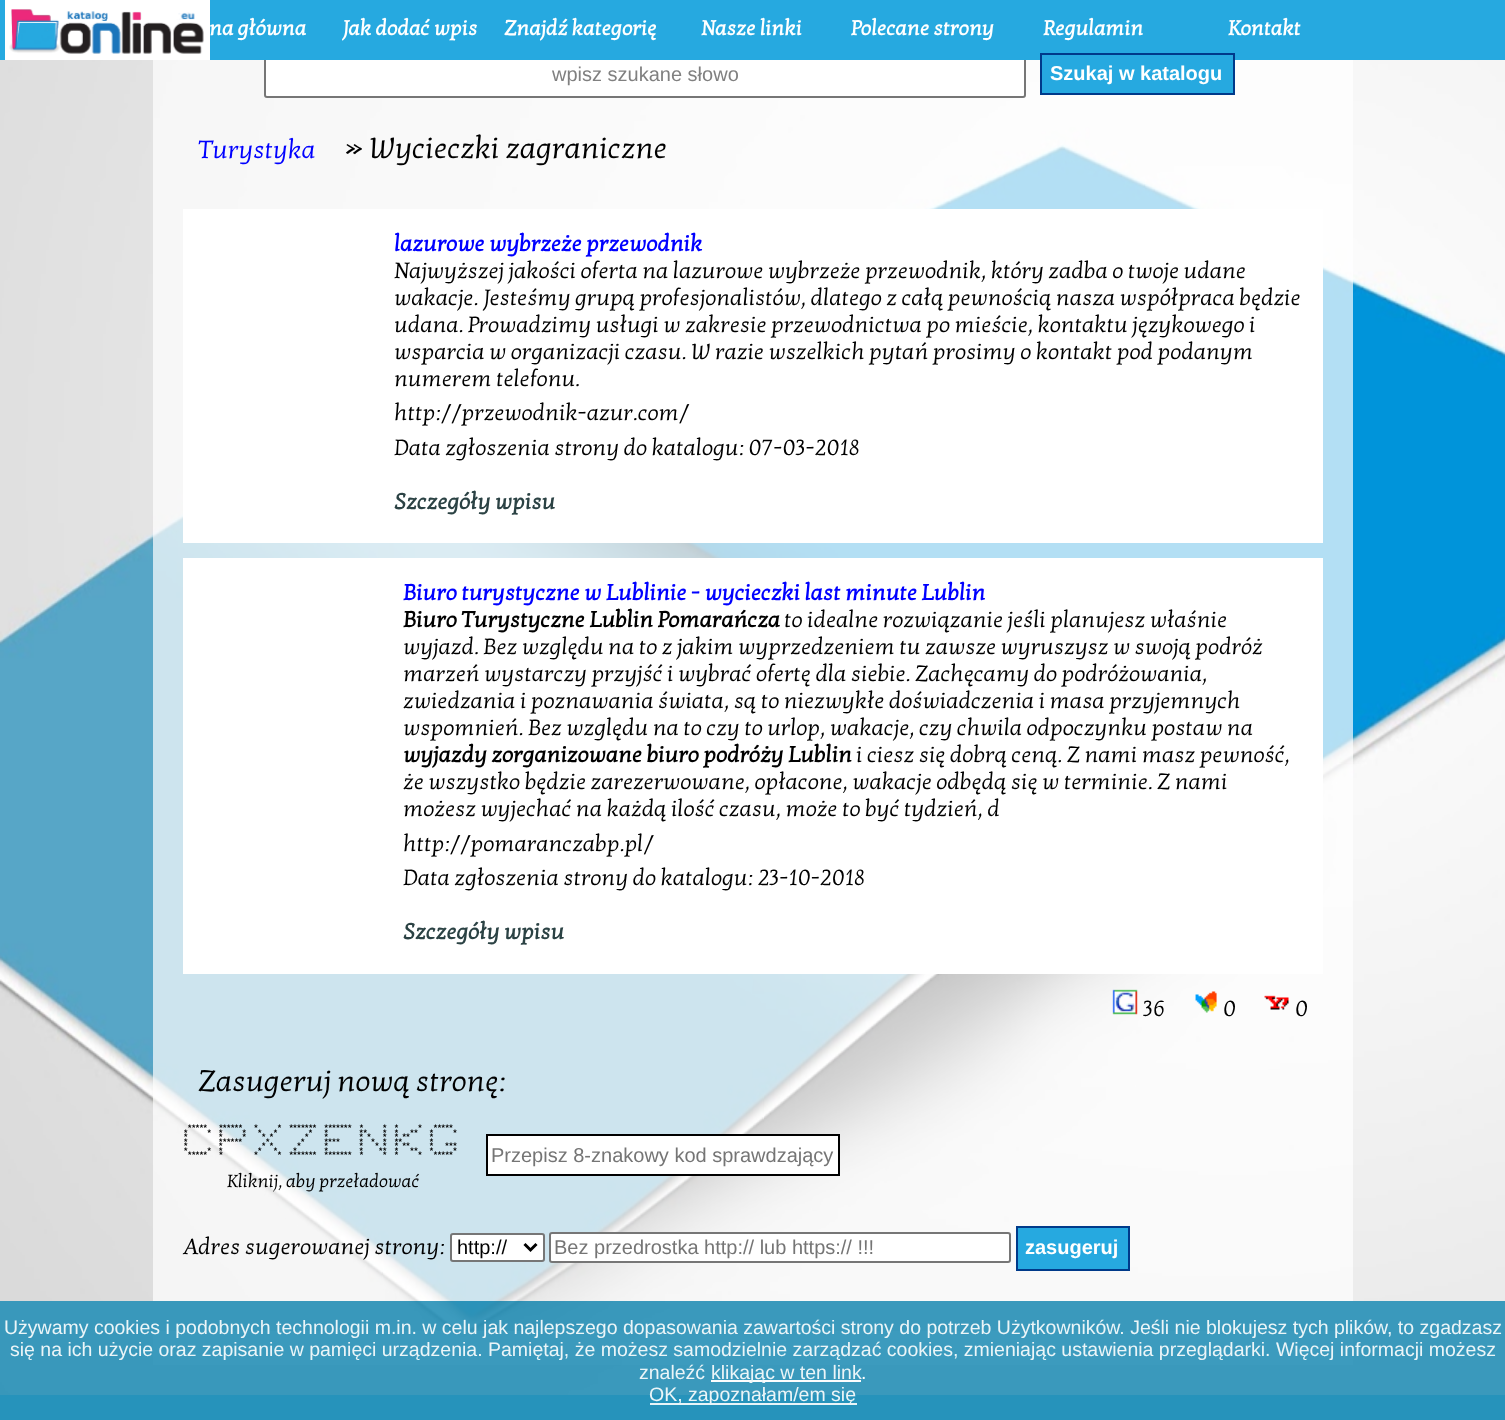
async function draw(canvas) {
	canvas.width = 1505;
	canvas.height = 1420;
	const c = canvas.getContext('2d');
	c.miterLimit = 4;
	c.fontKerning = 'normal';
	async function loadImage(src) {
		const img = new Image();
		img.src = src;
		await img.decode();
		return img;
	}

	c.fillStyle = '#fff';
	c.fillRect(0, 0, 1505, 1420);
	c.drawImage(await loadImage('img1.png'), 0, 60, 1505, 1335);
	c.fillStyle = '#ffffffb3';
	c.fillRect(153, 60, 1200, 44);
	c.fillStyle = '#fff';
	c.beginPath();
	c.roundRect(265, 54, 760, 43, 2);
	c.fill();
	c.strokeStyle = '#767676';
	c.lineWidth = 2;
	c.stroke();
	c.fillStyle = '#26a9e0';
	c.fillRect(0, 0, 1505, 60);
	c.fillStyle = '#fff';
	c.fillRect(5, 0, 205, 60);
	c.drawImage(await loadImage('img2.png'), 9, 9, 195, 45);
	c.font = 'bold 21px Kotta One';
	for (const [text, x, y] of [
		['na główna', 209, 35],
		['Jak dodać wpis', 342, 35],
		['Znajdź kategorię', 504, 35],
		['Nasze linki', 701, 35],
		['Polecane strony', 851, 35],
		['Regulamin', 1043, 35],
		['Kontakt', 1228, 35],
	]) {
		c.fillText(text, x, y);
	}
	c.font = '20px Liberation Sans';
	c.fillStyle = '#808080';
	c.fillText('wpisz szukane słowo', 552, 81);
	c.fillStyle = '#26a9e0';
	c.fillRect(1042, 60, 191, 33);
	c.strokeStyle = '#003a8a';
	c.strokeRect(1041, 54, 193, 40);
	c.font = 'bold 20px Liberation Sans';
	c.fillStyle = '#fff';
	c.fillText('Szukaj w katalogu', 1050, 80);
	c.fillStyle = '#ffffffb3';
	c.fillRect(153, 104, 1200, 1197);
	c.font = '25.5px Kotta One';
	c.fillStyle = '#00f';
	c.fillText('Turystyka', 198, 158);
	c.font = '30px Kotta One';
	c.fillStyle = '#000';
	c.fillText('» Wycieczki zagraniczne', 344, 158);
	c.fillStyle = '#fff';
	c.fillRect(183, 209, 1140, 334);
	c.font = 'bold 22.5px Kotta One';
	c.fillStyle = '#00f';
	c.fillText('lazurowe wybrzeże przewodnik', 394, 251);
	c.font = '22.5px Kotta One';
	c.fillStyle = '#000';
	for (const [text, x, y] of [
		['Najwyższej jakości oferta na lazurowe wybrzeże przewodnik, który zadba o twoje udane', 394, 278],
		['wakacje. Jesteśmy grupą profesjonalistów, dlatego z całą pewnością nasza współpraca będzie', 394, 305],
		['udana. Prowadzimy usługi w zakresie przewodnictwa po mieście, kontaktu językowego i', 394, 332],
		['wsparcia w organizacji czasu. W razie wszelkich pytań prosimy o kontakt pod podanym', 394, 359],
		['numerem telefonu.', 394, 386],
		['http://przewodnik-azur.com/', 394, 420],
		['Data zgłoszenia strony do katalogu: 07-03-2018', 394, 455],
	]) {
		c.fillText(text, x, y);
	}
	c.font = 'bold 22.5px Kotta One';
	c.fillStyle = '#2b4244';
	c.fillText('Szczegóły wpisu', 394, 509);
	c.fillStyle = '#fff';
	c.fillRect(183, 558, 1140, 416);
	c.fillStyle = '#00f';
	c.fillText('Biuro turystyczne w Lublinie - wycieczki last minute Lublin', 403, 600);
	c.fillStyle = '#000';
	c.fillText('Biuro Turystyczne Lublin Pomarańcza', 403, 627);
	c.font = '22.5px Kotta One';
	for (const [text, x, y] of [
		['to idealne rozwiązanie jeśli planujesz właśnie', 784, 627],
		['wyjazd. Bez względu na to z jakim wyprzedzeniem tu zawsze wyruszysz w swoją podróż', 403, 654],
		['marzeń wystarczy przyjść i wybrać ofertę dla siebie. Zachęcamy do podróżowania,', 403, 681],
		['zwiedzania i poznawania świata, są to niezwykłe doświadczenia i masa przyjemnych', 403, 708],
		['wspomnień. Bez względu na to czy to urlop, wakacje, czy chwila odpoczynku postaw na', 403, 735],
	]) {
		c.fillText(text, x, y);
	}
	c.font = 'bold 22.5px Kotta One';
	c.fillText('wyjazdy zorganizowane biuro podróży Lublin', 403, 762);
	c.font = '22.5px Kotta One';
	for (const [text, x, y] of [
		['i ciesz się dobrą ceną. Z nami masz pewność,', 856, 762],
		['że wszystko będzie zarezerwowane, opłacone, wakacje odbędą się w terminie. Z nami', 403, 789],
		['możesz wyjechać na każdą ilość czasu, może to być tydzień, d', 403, 816],
		['http://pomaranczabp.pl/', 403, 851],
		['Data zgłoszenia strony do katalogu: 23-10-2018', 403, 885],
	]) {
		c.fillText(text, x, y);
	}
	c.font = 'bold 22.5px Kotta One';
	c.fillStyle = '#2b4244';
	c.fillText('Szczegóły wpisu', 403, 939);
	c.drawImage(await loadImage('img3.png'), 1112, 989, 26, 26);
	c.font = '22.5px Kotta One';
	c.fillStyle = '#000';
	c.fillText('36', 1143, 1016);
	c.drawImage(await loadImage('img4.png'), 1195, 991, 22, 22);
	c.fillText('0', 1223, 1016);
	c.drawImage(await loadImage('img5.png'), 1264, 995, 25, 15);
	c.fillText('0', 1295, 1016);
	c.font = '30px Kotta One';
	c.fillText('Zasugeruj nową stronę:', 198, 1091);
	c.letterSpacing = '-1.5px';
	c.font = 'bold 9px Liberation Mono';
	for (const [text, x, y] of [
		['*****   ******   *     *  *******  *******  *     *  *     *   *****', 187, 1131],
		['*     *  *     *   *   *        *   *        **    *  *   **   *     *', 183, 1136],
		['*        *     *    * *        *    *        * *   *  * **     *', 183, 1140],
		['*        ******      *        *     ****     *  *  *  **       *', 183, 1145],
		['*        *          * *      *      *        *   * *  * **     *   ***', 183, 1149],
		['*     *  *         *   *    *       *        *    **  *   **   *     *', 183, 1154],
		['*****   *        *     *  *******  *******  *     *  *     *   *****', 187, 1158],
	]) {
		c.fillText(text, x, y);
	}
	c.letterSpacing = '0px';
	c.font = '18px Kotta One';
	c.fillText('Kliknij, aby przeładować', 227, 1187);
	c.fillStyle = '#fff';
	c.beginPath();
	c.rect(487, 1135, 352, 40);
	c.fill();
	c.strokeStyle = '#000';
	c.stroke();
	c.font = '20px Liberation Sans';
	c.fillStyle = '#757575';
	c.fillText('Przepisz 8-znakowy kod sprawdzający', 491, 1162);
	c.font = '22.5px Kotta One';
	c.fillStyle = '#000';
	c.fillText('Adres sugerowanej strony:', 183, 1254);
	c.fillStyle = '#fff';
	c.beginPath();
	c.roundRect(451, 1234, 93, 27, 2);
	c.fill();
	c.strokeStyle = '#767676';
	c.stroke();
	c.beginPath();
	c.moveTo(524.5, 1244);
	c.lineTo(530.5, 1250);
	c.lineTo(536.5, 1244);
	c.strokeStyle = '#000';
	c.lineWidth = 3;
	c.stroke();
	c.font = '20px Liberation Sans';
	c.fillStyle = '#000';
	c.fillText('http://', 457, 1254);
	c.fillStyle = '#fff';
	c.beginPath();
	c.roundRect(550, 1233, 460, 29, 2);
	c.fill();
	c.strokeStyle = '#767676';
	c.lineWidth = 2;
	c.stroke();
	c.fillStyle = '#757575';
	c.fillText('Bez przedrostka http:// lub https:// !!!', 554, 1254);
	c.fillStyle = '#26a9e0';
	c.beginPath();
	c.rect(1017, 1227, 112, 43);
	c.fill();
	c.strokeStyle = '#003a8a';
	c.stroke();
	c.font = 'bold 20px Liberation Sans';
	c.fillStyle = '#fff';
	c.fillText('zasugeruj', 1025, 1254);
	for (const [x, y, w, h, color] of [
		[153, 1331, 1200, 34, '#ffffffb3'],
		[0, 1395, 1505, 25, '#26a9e0'],
		[0, 1301, 1505, 119, '#2790b7e6'],
	]) {
		c.fillStyle = color;
		c.fillRect(x, y, w, h);
	}
	c.font = '19.5px Liberation Sans';
	c.fillStyle = '#ebf5f8';
	for (const [text, x, y] of [
		['Używamy cookies i podobnych technologii m.in. w celu jak najlepszego dopasowania zawartości strony do potrzeb Użytkowników. Jeśli nie blokujesz tych plików, to zgadzasz', 4, 1334],
		['się na ich użycie oraz zapisanie w pamięci urządzenia. Pamiętaj, że możesz samodzielnie zarządzać cookies, zmieniając ustawienia przeglądarki. Więcej informacji możesz', 10, 1356],
		['znaleźć', 639, 1379],
	]) {
		c.fillText(text, x, y);
	}
	c.fillStyle = '#fdfdfd';
	c.fillRect(711, 1380, 150, 2);
	c.fillStyle = '#ebf5f8';
	c.fillText('klikając w ten link', 711, 1379);
	c.fillStyle = '#fff';
	c.fillText('.', 861, 1379);
	c.fillStyle = '#ffffffe6';
	c.fillRect(650, 1403, 207, 2);
	c.fillStyle = '#ebf5f8';
	c.fillText('OK, zapoznałam/em się', 649, 1401);
}

draw(document.querySelector('canvas'));
